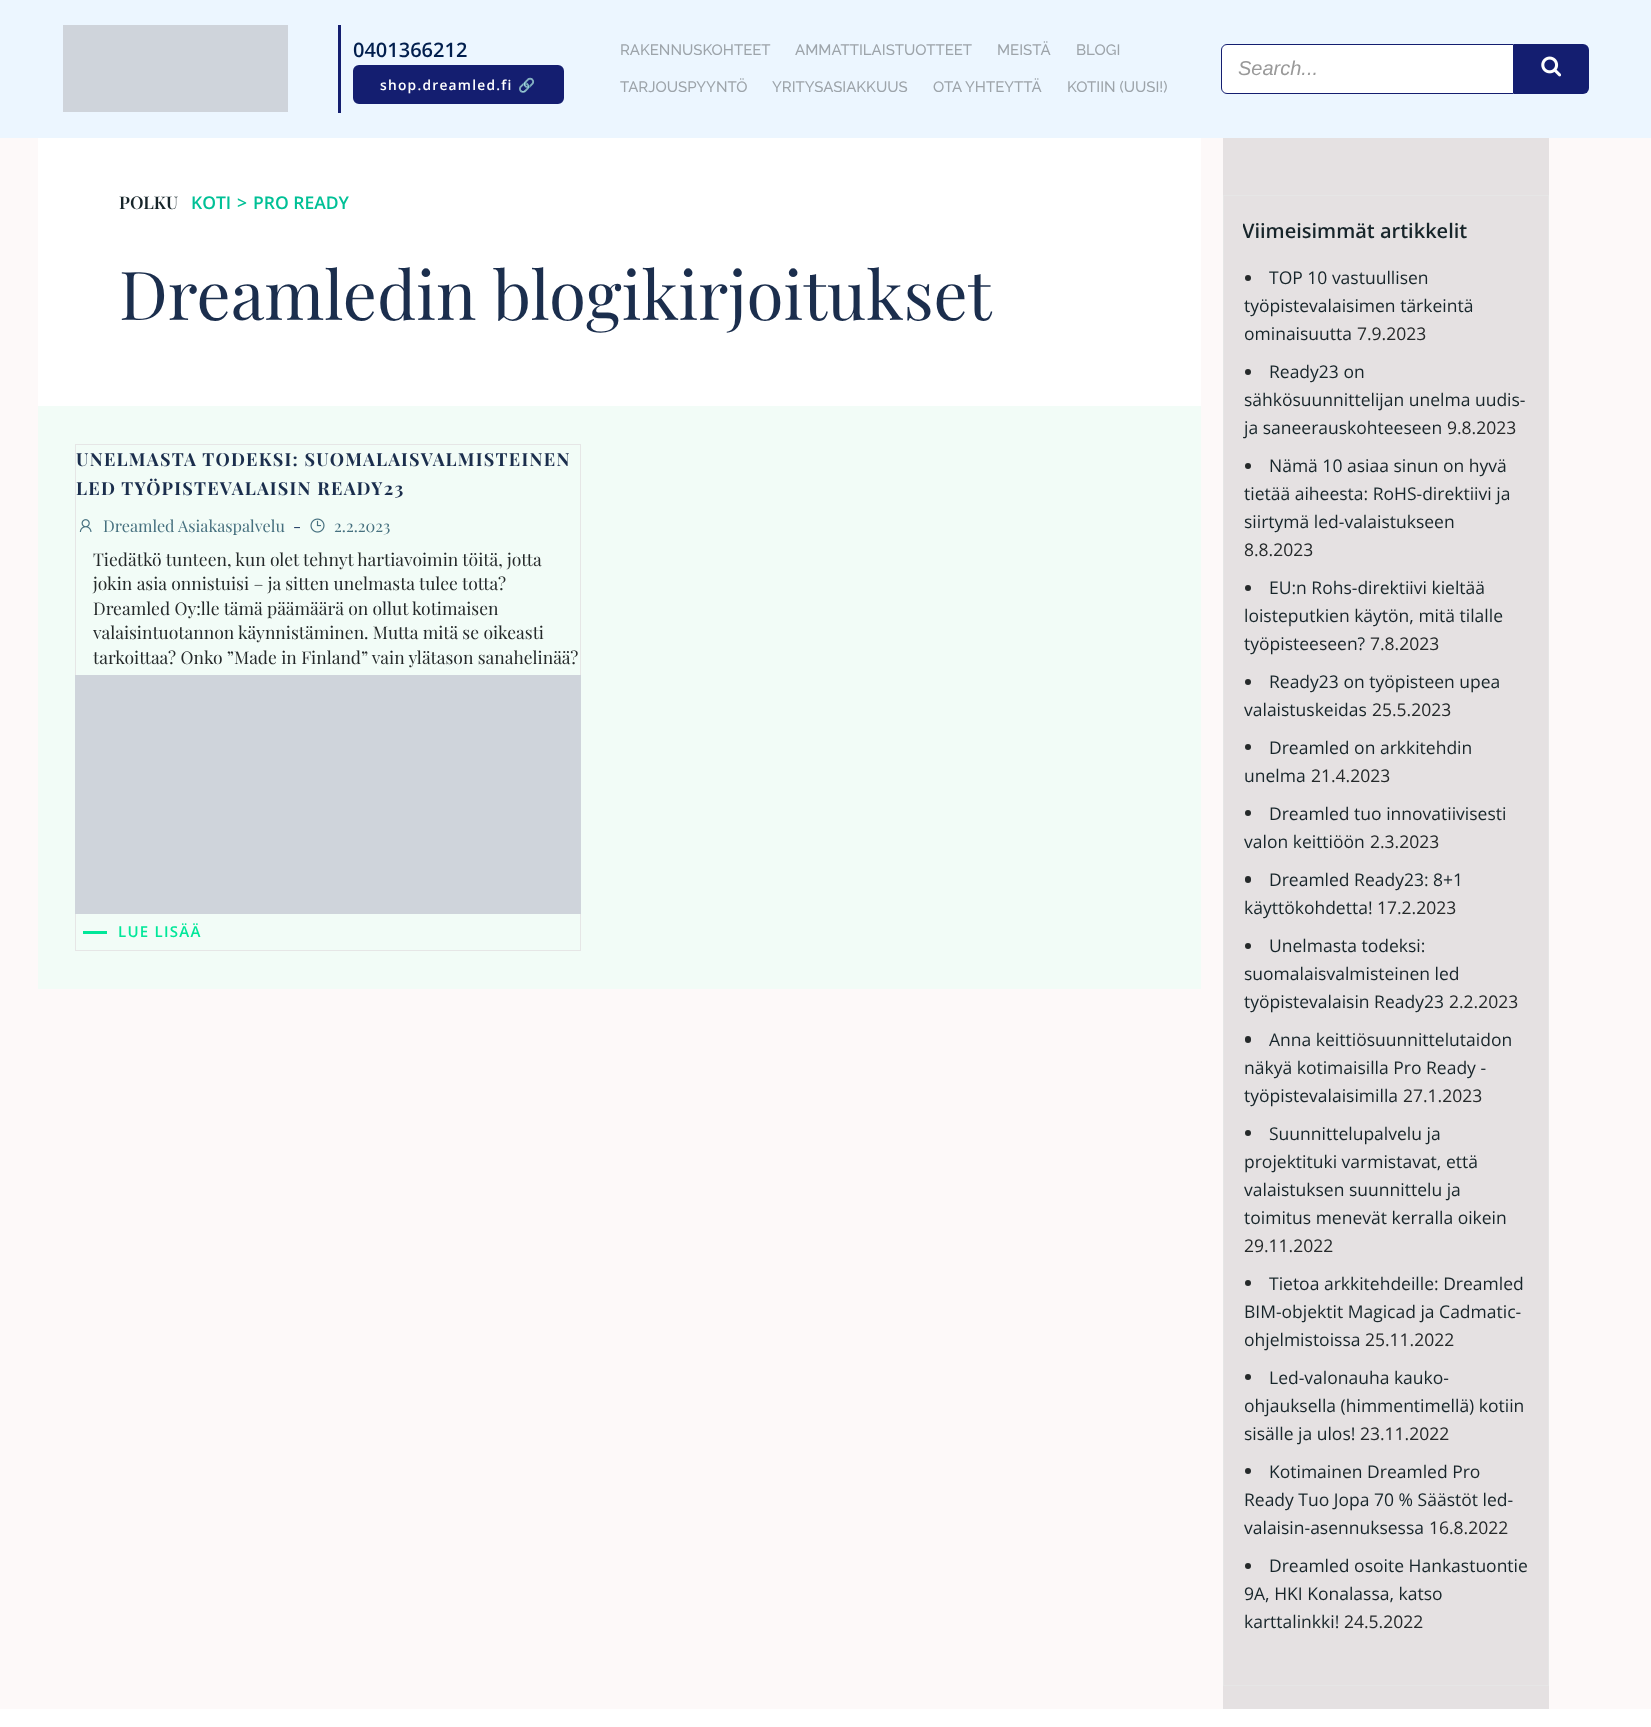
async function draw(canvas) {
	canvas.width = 1651;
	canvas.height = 1727;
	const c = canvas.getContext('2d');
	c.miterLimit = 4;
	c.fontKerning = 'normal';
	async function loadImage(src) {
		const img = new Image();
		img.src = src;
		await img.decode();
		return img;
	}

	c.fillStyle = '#fff';
	c.fillRect(0, 0, 1651, 1727);
	for (const [x, y, w, h, color] of [
		[0, 0, 1651, 138, '#ecf6ff'],
		[63, 25, 225, 87, '#cfd4db'],
		[338, 25, 3, 88, '#141e70'],
	]) {
		c.fillStyle = color;
		c.fillRect(x, y, w, h);
	}
	c.font = '600 20px Open Sans';
	c.fillStyle = '#011e4d';
	c.fillText('0401366212', 353, 57);
	c.fillStyle = '#141e70';
	c.beginPath();
	c.roundRect(354.5, 66.5, 208, 36, 4.5);
	c.fill();
	c.strokeStyle = '#141e70';
	c.lineWidth = 3;
	c.stroke();
	c.letterSpacing = '1.25px';
	c.font = '600 13.75px Open Sans';
	c.fillStyle = '#fff';
	c.fillText('shop.dreamled.fi', 380, 90);
	c.font = 'bold 13.75px Noto Color Emoji';
	c.fillText('🔗', 518, 90);
	c.letterSpacing = '0px';
	c.font = '500 15px Raleway';
	c.fillStyle = '#9da4aa';
	for (const [text, x, y] of [
		['RAKENNUSKOHTEET', 620, 55],
		['AMMATTILAISTUOTTEET', 795, 55],
		['MEISTÄ', 997, 55],
		['BLOGI', 1076, 55],
		['TARJOUSPYYNTÖ', 620, 92],
		['YRITYSASIAKKUUS', 772, 92],
		['OTA YHTEYTTÄ', 933, 92],
		['KOTIIN (UUSI!)', 1067, 92],
	]) {
		c.fillText(text, x, y);
	}
	c.fillStyle = '#fff';
	c.beginPath();
	c.roundRect(1221.5, 44.5, 292, 49, [5.5, 0, 0, 5.5]);
	c.fill();
	c.lineWidth = 1;
	c.stroke();
	c.font = 'italic 20px Liberation Sans';
	c.fillStyle = '#999';
	c.fillText('Search...', 1238, 75);
	c.fillStyle = '#141e70';
	c.beginPath();
	c.roundRect(1514, 44, 75, 50, [0, 6, 6, 0]);
	c.fill();
	c.drawImage(await loadImage('img1.png'), 1541, 56, 20, 21);
	c.fillStyle = '#fdf9f9';
	c.fillRect(0, 138, 1651, 1571);
	c.fillStyle = '#fff';
	c.fillRect(38, 138, 1163, 268);
	c.font = '600 17.5px Playfair Display';
	c.fillStyle = '#17252a';
	c.fillText('POLKU', 119, 209);
	c.font = '600 17.5px Open Sans';
	c.fillStyle = '#00c096';
	for (const [text, x, y] of [
		['KOTI', 191, 209],
		['>', 237, 209],
		['PRO READY', 253, 209],
	]) {
		c.fillText(text, x, y);
	}
	c.font = '67.5px Playfair Display';
	c.fillStyle = '#1b2e4d';
	c.fillText('Dreamledin blogikirjoitukset', 119, 320);
	c.fillStyle = '#f2fcf7';
	c.fillRect(38, 406, 1163, 583);
	c.strokeStyle = '#e6e6e6';
	c.strokeRect(75.5, 444.5, 505, 506);
	c.letterSpacing = '1.25px';
	c.font = 'bold 18px Playfair Display';
	c.fillStyle = '#1b2e4d';
	c.fillText('UNELMASTA TODEKSI: SUOMALAISVALMISTEINEN', 76, 466);
	c.fillText('LED TYÖPISTEVALAISIN READY23', 76, 495);
	c.drawImage(await loadImage('img2.png'), 79, 519, 13, 13);
	c.letterSpacing = '0px';
	c.font = '16.25px Playfair Display';
	c.fillStyle = '#46707f';
	c.fillText('Dreamled Asiakaspalvelu', 103, 532);
	c.fillStyle = '#011e4d';
	c.fillText('-', 293, 532);
	c.drawImage(await loadImage('img3.png'), 310, 518, 15, 15);
	c.fillStyle = '#46707f';
	c.fillText('2.2.2023', 334, 532);
	c.font = '17.5px Playfair Display';
	c.fillStyle = '#25292a';
	for (const [text, x, y] of [
		['Tiedätkö tunteen, kun olet tehnyt hartiavoimin töitä, jotta', 93, 566],
		['jokin asia onnistuisi – ja sitten unelmasta tulee totta?', 93, 590],
		['Dreamled Oy:lle tämä päämäärä on ollut kotimaisen', 93, 615],
		['valaisintuotannon käynnistäminen. Mutta mitä se oikeasti', 93, 639],
		['tarkoittaa? Onko ”Made in Finland” vain ylätason sanahelinää?', 93, 664],
	]) {
		c.fillText(text, x, y);
	}
	c.fillStyle = '#cfd4db';
	c.fillRect(75, 675, 506, 239);
	c.fillStyle = '#00e799';
	c.fillRect(83, 931, 24, 3);
	c.letterSpacing = '1.25px';
	c.font = '600 15px Open Sans';
	c.fillText('LUE LISÄÄ', 118, 937);
	c.fillStyle = '#e5e1e2';
	c.fillRect(1223, 138, 326, 1571);
	c.strokeRect(1223.5, 195.5, 325, 1490);
	c.save();
	c.beginPath();
	c.rect(1243, 215, 286, 1426);
	c.clip();
	c.letterSpacing = '0px';
	c.font = '600 20px Open Sans';
	c.fillStyle = '#17252a';
	c.fillText('Viimeisimmät artikkelit', 1242, 238);
	c.restore();
	c.fillStyle = '#25292a';
	c.beginPath();
	c.arc(1248, 278, 3, 0, 2 * Math.PI);
	c.fill();
	c.letterSpacing = '0px';
	c.font = '17.5px Open Sans';
	c.fillStyle = '#17252a';
	for (const [text, x, y] of [
		['TOP 10 vastuullisen', 1269, 284],
		['työpistevalaisimen tärkeintä', 1244, 312],
		['ominaisuutta', 1244, 340],
	]) {
		c.fillText(text, x, y);
	}
	c.fillStyle = '#25292a';
	c.fillText('7.9.2023', 1357, 340);
	c.beginPath();
	c.arc(1248, 372, 3, 0, 2 * Math.PI);
	c.fill();
	c.fillStyle = '#17252a';
	for (const [text, x, y] of [
		['Ready23 on', 1269, 378],
		['sähkösuunnittelijan unelma uudis-', 1244, 406],
		['ja saneerauskohteeseen', 1244, 434],
	]) {
		c.fillText(text, x, y);
	}
	c.fillStyle = '#25292a';
	c.fillText('9.8.2023', 1447, 434);
	c.beginPath();
	c.arc(1248, 466, 3, 0, 2 * Math.PI);
	c.fill();
	c.fillStyle = '#17252a';
	for (const [text, x, y] of [
		['Nämä 10 asiaa sinun on hyvä', 1269, 472],
		['tietää aiheesta: RoHS-direktiivi ja', 1244, 500],
		['siirtymä led-valaistukseen', 1244, 528],
	]) {
		c.fillText(text, x, y);
	}
	c.fillStyle = '#25292a';
	c.fillText('8.8.2023', 1244, 556);
	c.beginPath();
	c.arc(1248, 588, 3, 0, 2 * Math.PI);
	c.fill();
	c.fillStyle = '#17252a';
	for (const [text, x, y] of [
		['EU:n Rohs-direktiivi kieltää', 1269, 594],
		['loisteputkien käytön, mitä tilalle', 1244, 622],
		['työpisteeseen?', 1244, 650],
	]) {
		c.fillText(text, x, y);
	}
	c.fillStyle = '#25292a';
	c.fillText('7.8.2023', 1370, 650);
	c.beginPath();
	c.arc(1248, 682, 3, 0, 2 * Math.PI);
	c.fill();
	c.fillStyle = '#17252a';
	c.fillText('Ready23 on työpisteen upea', 1269, 688);
	c.fillText('valaistuskeidas', 1244, 716);
	c.fillStyle = '#25292a';
	c.fillText('25.5.2023', 1372, 716);
	c.beginPath();
	c.arc(1248, 747, 3, 0, 2 * Math.PI);
	c.fill();
	c.fillStyle = '#17252a';
	c.fillText('Dreamled on arkkitehdin', 1269, 754);
	c.fillText('unelma', 1244, 782);
	c.fillStyle = '#25292a';
	c.fillText('21.4.2023', 1311, 782);
	c.beginPath();
	c.arc(1248, 813, 3, 0, 2 * Math.PI);
	c.fill();
	c.fillStyle = '#17252a';
	c.fillText('Dreamled tuo innovatiivisesti', 1269, 820);
	c.fillText('valon keittiöön', 1244, 848);
	c.fillStyle = '#25292a';
	c.fillText('2.3.2023', 1370, 848);
	c.beginPath();
	c.roundRect(1245, 876, 6, 7, 3);
	c.fill();
	c.fillStyle = '#17252a';
	c.fillText('Dreamled Ready23: 8+1', 1269, 886);
	c.fillText('käyttökohdetta!', 1244, 914);
	c.fillStyle = '#25292a';
	c.fillText('17.2.2023', 1377, 914);
	c.beginPath();
	c.arc(1248, 946, 3, 0, 2 * Math.PI);
	c.fill();
	c.fillStyle = '#17252a';
	for (const [text, x, y] of [
		['Unelmasta todeksi:', 1269, 952],
		['suomalaisvalmisteinen led', 1244, 980],
		['työpistevalaisin Ready23', 1244, 1008],
	]) {
		c.fillText(text, x, y);
	}
	c.fillStyle = '#25292a';
	c.fillText('2.2.2023', 1449, 1008);
	c.beginPath();
	c.roundRect(1245, 1036, 6, 7, 3);
	c.fill();
	c.fillStyle = '#17252a';
	for (const [text, x, y] of [
		['Anna keittiösuunnittelutaidon', 1269, 1046],
		['näkyä kotimaisilla Pro Ready -', 1244, 1074],
		['työpistevalaisimilla', 1244, 1102],
	]) {
		c.fillText(text, x, y);
	}
	c.fillStyle = '#25292a';
	c.fillText('27.1.2023', 1403, 1102);
	c.beginPath();
	c.arc(1248, 1133, 3, 0, 2 * Math.PI);
	c.fill();
	c.fillStyle = '#17252a';
	for (const [text, x, y] of [
		['Suunnittelupalvelu ja', 1269, 1140],
		['projektituki varmistavat, että', 1244, 1168],
		['valaistuksen suunnittelu ja', 1244, 1196],
		['toimitus menevät kerralla oikein', 1244, 1224],
	]) {
		c.fillText(text, x, y);
	}
	c.fillStyle = '#25292a';
	c.fillText('29.11.2022', 1244, 1252);
	c.beginPath();
	c.arc(1248, 1283, 3, 0, 2 * Math.PI);
	c.fill();
	c.fillStyle = '#17252a';
	for (const [text, x, y] of [
		['Tietoa arkkitehdeille: Dreamled', 1269, 1290],
		['BIM-objektit Magicad ja Cadmatic-', 1244, 1318],
		['ohjelmistoissa', 1244, 1346],
	]) {
		c.fillText(text, x, y);
	}
	c.fillStyle = '#25292a';
	c.fillText('25.11.2022', 1365, 1346);
	c.beginPath();
	c.arc(1248, 1377, 3, 0, 2 * Math.PI);
	c.fill();
	c.fillStyle = '#17252a';
	for (const [text, x, y] of [
		['Led-valonauha kauko-', 1269, 1384],
		['ohjauksella (himmentimellä) kotiin', 1244, 1412],
		['sisälle ja ulos!', 1244, 1440],
	]) {
		c.fillText(text, x, y);
	}
	c.fillStyle = '#25292a';
	c.fillText('23.11.2022', 1360, 1440);
	c.beginPath();
	c.arc(1248, 1471, 3, 0, 2 * Math.PI);
	c.fill();
	c.fillStyle = '#17252a';
	for (const [text, x, y] of [
		['Kotimainen Dreamled Pro', 1269, 1478],
		['Ready Tuo Jopa 70 % Säästöt led-', 1244, 1506],
		['valaisin-asennuksessa', 1244, 1534],
	]) {
		c.fillText(text, x, y);
	}
	c.fillStyle = '#25292a';
	c.fillText('16.8.2022', 1429, 1534);
	c.beginPath();
	c.arc(1248, 1566, 3, 0, 2 * Math.PI);
	c.fill();
	c.fillStyle = '#17252a';
	for (const [text, x, y] of [
		['Dreamled osoite Hankastuontie', 1269, 1572],
		['9A, HKI Konalassa, katso', 1244, 1600],
		['karttalinkki!', 1244, 1628],
	]) {
		c.fillText(text, x, y);
	}
	c.fillStyle = '#25292a';
	c.fillText('24.5.2022', 1344, 1628);
}

draw(document.querySelector('canvas'));
